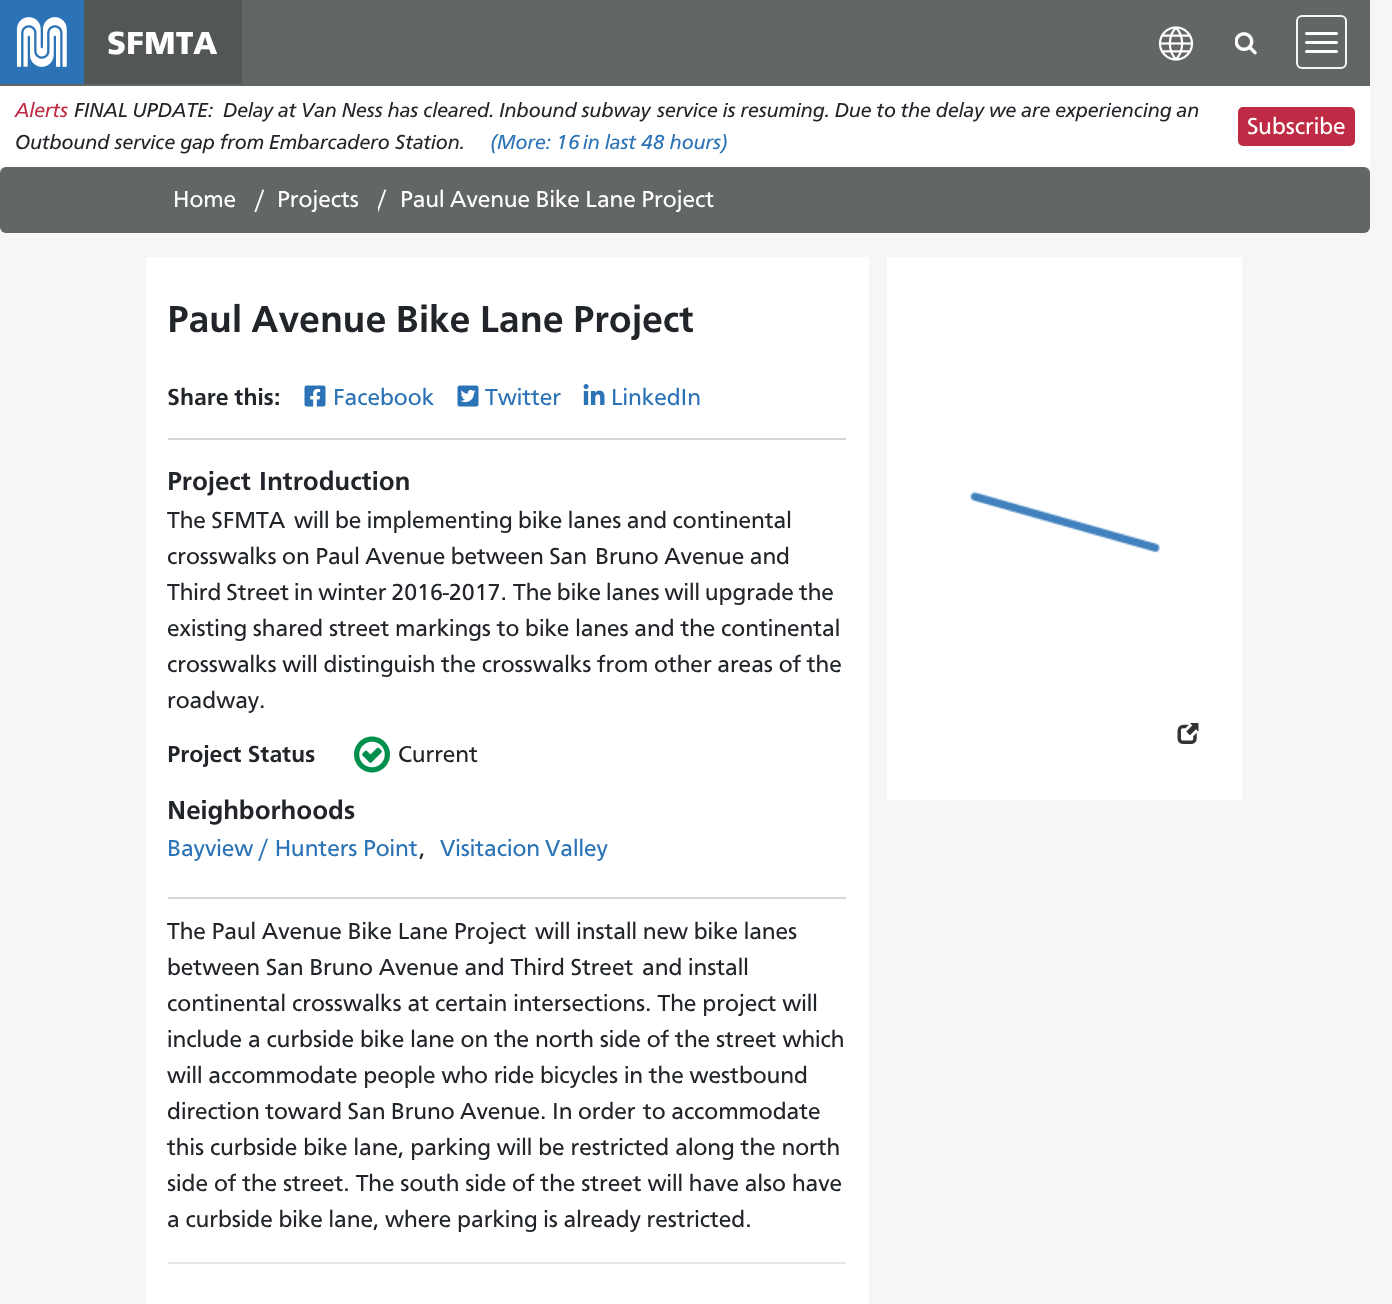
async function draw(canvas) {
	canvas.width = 1392;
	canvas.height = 1304;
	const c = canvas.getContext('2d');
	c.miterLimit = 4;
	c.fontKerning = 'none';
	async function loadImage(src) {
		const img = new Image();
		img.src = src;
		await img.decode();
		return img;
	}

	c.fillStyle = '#f6f6f7';
	c.fillRect(0, 0, 1392, 1304);
	c.fillStyle = '#636667';
	c.fillRect(0, 0, 1370, 86);
	c.fillStyle = '#2b73b6';
	c.fillRect(0, 0, 84, 84);
	c.drawImage(await loadImage('img1.png'), 16, 17, 51, 50);
	c.fillStyle = '#525657';
	c.fillRect(84, 0, 158, 84);
	c.font = '800 33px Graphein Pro';
	c.fillStyle = '#fff';
	c.fillText('SFMTA', 107, 54);
	c.drawImage(await loadImage('img2.png'), 1158, 26, 36, 35);
	c.drawImage(await loadImage('img3.png'), 1235, 32, 22, 23);
	c.beginPath();
	c.roundRect(1297, 16, 49, 52, 5);
	c.strokeStyle = '#f5f5f5';
	c.lineWidth = 2;
	c.stroke();
	c.beginPath();
	c.roundRect(1305, 32, 33, 3, 1.5);
	c.fill();
	c.beginPath();
	c.roundRect(1305, 41, 33, 3, 1.5);
	c.fill();
	c.beginPath();
	c.roundRect(1305, 50, 33, 3, 1.5);
	c.fill();
	c.fillRect(0, 86, 1370, 81);
	c.font = 'italic 21px Graphein Pro';
	c.fillStyle = '#bf2b45';
	c.fillText('Alerts', 15, 117);
	c.wordSpacing = '-0.3px';
	c.fillStyle = '#212529';
	c.fillText('FINAL UPDATE:', 74, 117);
	c.fillText('Delay at Van Ness has cleared. Inbound subway', 223, 117);
	c.fillText('service is resuming. Due to the delay we are experiencing an', 657, 117);
	c.wordSpacing = '-0.25px';
	c.fillText('Outbound service gap from Embarcadero Station.', 15, 149);
	c.wordSpacing = '0px';
	c.fillStyle = '#2b73b6';
	c.fillText('(More: 16', 490, 149);
	c.fillText('in last 48 hours)', 583, 149);
	c.fillStyle = '#bf2b45';
	c.beginPath();
	c.roundRect(1239, 108, 115, 37, 4);
	c.fill();
	c.strokeStyle = '#bf2b45';
	c.stroke();
	c.font = '24px Graphein Pro';
	c.fillStyle = '#fff';
	c.fillText('Subscribe', 1247, 134);
	c.fillStyle = '#636667';
	c.beginPath();
	c.roundRect(0, 167, 1370, 66, 6);
	c.fill();
	c.fillStyle = '#fff';
	for (const [text, x, y] of [
		['Home', 173, 207],
		['/', 255, 207],
		['Projects', 277, 207],
	]) {
		c.fillText(text, x, y);
	}
	c.save();
	c.beginPath();
	c.rect(378, 182, 338, 36);
	c.clip();
	c.fillText('/', 377, 207);
	c.restore();
	c.wordSpacing = '-0.5px';
	c.fillText('Paul Avenue Bike Lane Project', 400, 207);
	c.fillRect(146, 257, 723, 1047);
	c.font = 'bold 39px Graphein Pro';
	c.fillStyle = '#212529';
	c.fillText('Paul Avenue Bike Lane Project', 167, 332);
	c.fillStyle = '#d5d5d6';
	c.fillRect(168, 438, 678, 2);
	c.wordSpacing = '0px';
	c.font = 'bold 24px Graphein Pro';
	c.fillStyle = '#212529';
	c.fillText('Share this:', 167, 405);
	c.drawImage(await loadImage('img4.png'), 304, 385, 22, 22);
	c.font = '24px Graphein Pro';
	c.fillStyle = '#2b73b6';
	c.fillText('Facebook', 333, 405);
	c.drawImage(await loadImage('img5.png'), 457, 385, 22, 22);
	c.fillText('Twitter', 485, 405);
	c.drawImage(await loadImage('img6.png'), 583, 384, 22, 21);
	c.fillText('LinkedIn', 611, 405);
	c.wordSpacing = '1px';
	c.font = 'bold 27px Graphein Pro';
	c.fillStyle = '#212529';
	c.fillText('Project Introduction', 167, 490);
	c.wordSpacing = '-0.5px';
	c.font = '24px Graphein Pro';
	c.fillText('The SFMTA', 167, 528);
	c.fillText('will be implementing bike lanes and continental', 294, 528);
	c.fillText('crosswalks on Paul Avenue between San', 167, 564);
	c.fillText('Bruno Avenue and', 595, 564);
	c.wordSpacing = '-1px';
	c.font = '24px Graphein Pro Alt';
	c.fillText('Third Street in winter 2016-2017.', 167, 600);
	c.fillText('The bike lanes will upgrade the', 513, 600);
	c.wordSpacing = '-0.25px';
	c.font = '24px Graphein Pro';
	c.fillText('existing shared street markings to bike lanes and the continental', 167, 636);
	c.fillText('crosswalks will distinguish the crosswalks from other areas of the', 167, 672);
	c.wordSpacing = '0px';
	c.fillText('roadway.', 167, 708);
	c.font = 'bold 24px Graphein Pro';
	c.fillText('Project Status', 167, 762);
	c.drawImage(await loadImage('img7.png'), 354, 736, 36, 37);
	c.font = '24px Graphein Pro';
	c.fillText('Current', 398, 762);
	c.fillStyle = '#d5d5d6';
	c.fillRect(168, 897, 678, 2);
	c.font = 'bold 27px Graphein Pro';
	c.fillStyle = '#212529';
	c.fillText('Neighborhoods', 167, 819);
	c.wordSpacing = '-0.5px';
	c.font = '24px Graphein Pro';
	c.fillStyle = '#2b73b6';
	c.fillText('Bayview / Hunters Point', 167, 856);
	c.wordSpacing = '0px';
	c.fillStyle = '#212529';
	c.fillText(',', 419, 856);
	c.wordSpacing = '-1px';
	c.fillStyle = '#2b73b6';
	c.fillText('Visitacion Valley', 440, 856);
	c.wordSpacing = '-0.25px';
	c.fillStyle = '#212529';
	c.fillText('The Paul Avenue Bike Lane Project', 167, 939);
	c.fillText('will install new bike lanes', 535, 939);
	c.fillText('between San Bruno Avenue and Third Street', 167, 975);
	c.fillText('and install', 642, 975);
	c.wordSpacing = '0px';
	c.fillText('continental crosswalks at certain intersections. The project will', 167, 1011);
	c.fillText('include a curbside bike lane on the north side of the street which', 167, 1047);
	c.wordSpacing = '-0.25px';
	c.fillText('will accommodate people who ride bicycles in the westbound', 167, 1083);
	c.wordSpacing = '-0.5px';
	c.fillText('direction toward San Bruno Avenue. In order', 167, 1119);
	c.fillText('to accommodate', 643, 1119);
	c.wordSpacing = '0px';
	c.fillText('this curbside bike lane, parking will be restricted along the north', 167, 1155);
	c.wordSpacing = '-0.1px';
	c.fillText('side of the street. The south side of the street will have also have', 167, 1191);
	c.wordSpacing = '-0.25px';
	c.fillText('a curbside bike lane, where parking is already restricted.', 167, 1227);
	c.fillStyle = '#e6e6e6';
	c.fillRect(168, 1262, 678, 2);
	c.fillStyle = '#fff';
	c.fillRect(887, 257, 355, 543);
	c.drawImage(await loadImage('img8.png'), 970, 491, 229, 253);
}

draw(document.querySelector('canvas'));
